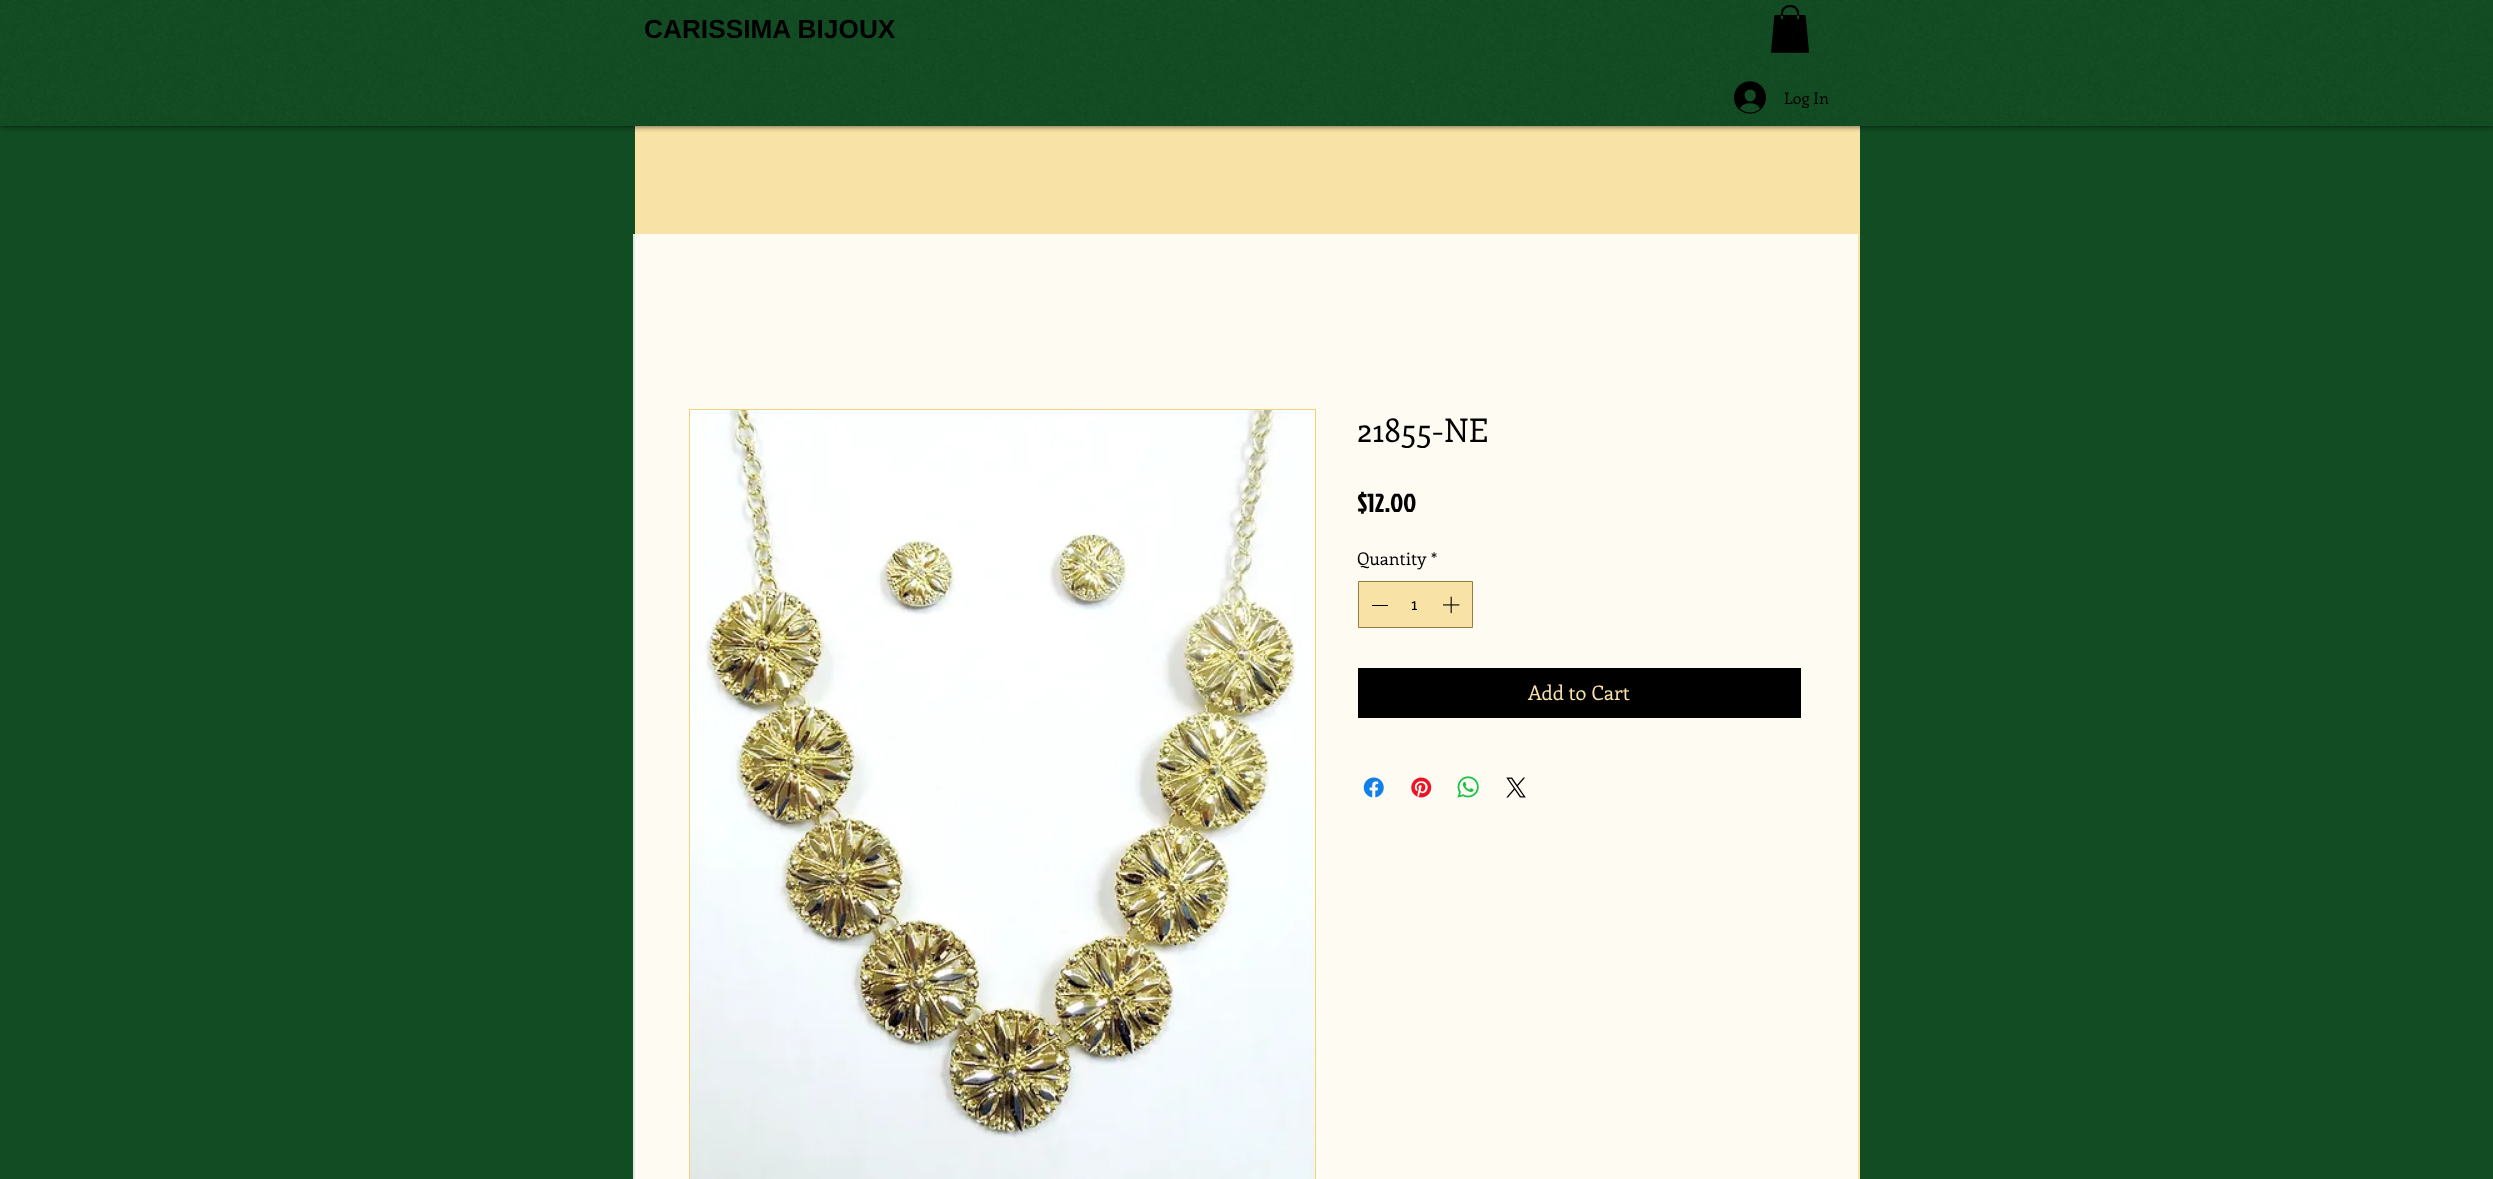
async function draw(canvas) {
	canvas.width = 2493;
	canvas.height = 1179;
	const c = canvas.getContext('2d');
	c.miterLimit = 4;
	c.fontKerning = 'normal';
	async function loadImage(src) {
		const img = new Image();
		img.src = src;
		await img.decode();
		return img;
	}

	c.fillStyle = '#114c22';
	c.fillRect(0, 0, 2493, 1179);
	c.fillStyle = '#e0e8e2';
	c.fillRect(633, 234, 2, 945);
	c.fillStyle = '#f9e2a6';
	c.fillRect(635, 126, 1225, 1053);
	c.save();
	c.beginPath();
	c.rect(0, 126, 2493, 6);
	c.clip();
	c.fillStyle = '#000000b3';
	c.filter = 'blur(3px)';
	c.beginPath();
	c.rect(0, 0, 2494, 126);
	c.fill();
	c.filter = 'none';
	c.restore();
	c.drawImage(await loadImage('img1.png'), 0, 0, 2493, 126);
	c.font = 'bold 26.25px Liberation Sans';
	c.fillStyle = '#000';
	c.fillText('CARISSIMA BIJOUX', 644, 38);
	c.drawImage(await loadImage('img2.png'), 1771, 5, 38, 48);
	c.drawImage(await loadImage('img3.png'), 1734, 81, 32, 33);
	c.font = '16px Enriqueta';
	c.fillText('Log In', 1784, 104);
	c.fillStyle = '#fefbf3';
	c.fillRect(635, 234, 1223, 945);
	c.strokeStyle = '#f4d27a';
	c.strokeRect(689.5, 409.5, 626, 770);
	c.drawImage(await loadImage('img4.png'), 690, 410, 625, 769);
	c.font = '32.5px Enriqueta';
	c.fillStyle = '#000';
	c.fillText('21855-NE', 1357, 442);
	c.font = '26.25px Jockey One';
	c.fillText('$12.00', 1357, 512);
	c.font = '17.5px Enriqueta';
	c.fillText('Quantity', 1357, 565);
	c.fillText('*', 1431, 565);
	c.fillStyle = '#f9e2a6';
	c.beginPath();
	c.rect(1358.5, 581.5, 114, 46);
	c.fill();
	c.strokeStyle = '#937d42';
	c.stroke();
	c.fillStyle = '#000';
	c.fillRect(1372, 605, 16, 1);
	c.fillText('1', 1411, 610);
	c.drawImage(await loadImage('img5.png'), 1443, 596, 17, 18);
	c.fillRect(1358, 668, 443, 50);
	c.font = '20px Enriqueta';
	c.fillStyle = '#f9e2a6';
	c.fillText('Add to Cart', 1528, 700);
	c.drawImage(await loadImage('img6.png'), 1363, 777, 21, 21);
	c.drawImage(await loadImage('img7.png'), 1411, 777, 21, 21);
	c.drawImage(await loadImage('img8.png'), 1457, 776, 22, 22);
	c.drawImage(await loadImage('img9.png'), 1506, 777, 20, 21);
}

draw(document.querySelector('canvas'));
